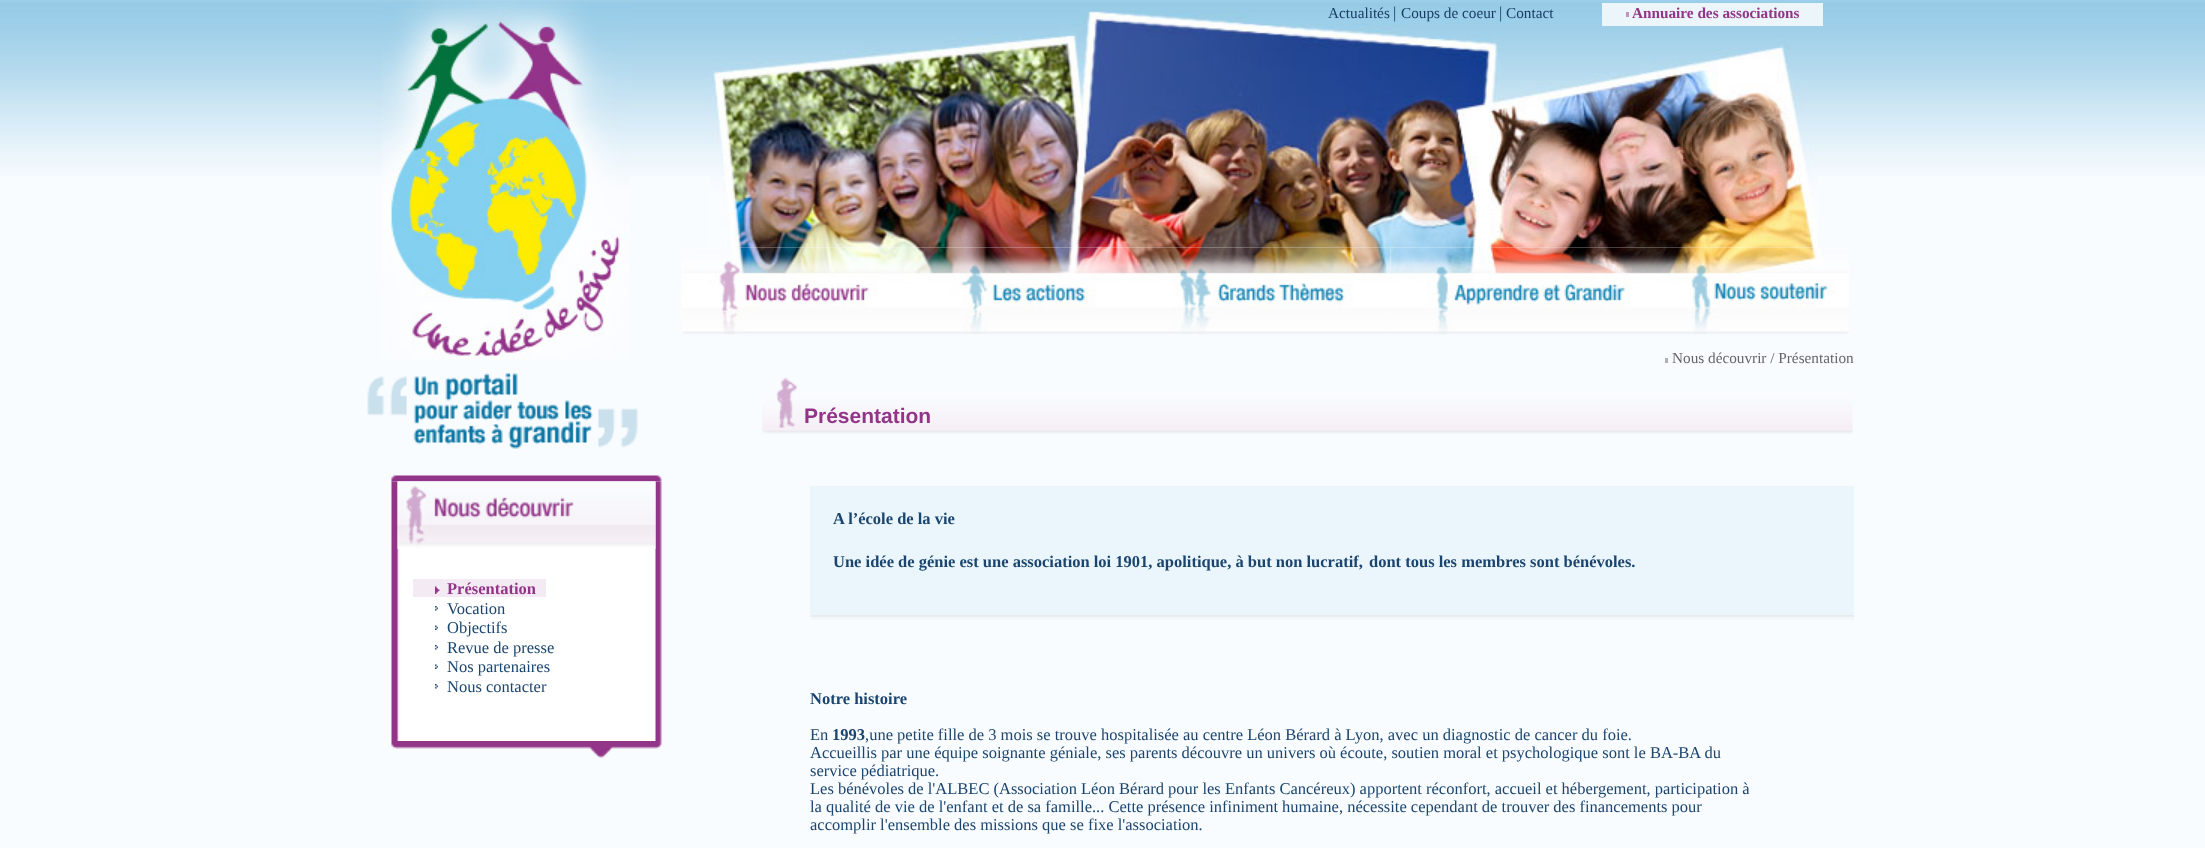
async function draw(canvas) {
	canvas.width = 2205;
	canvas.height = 848;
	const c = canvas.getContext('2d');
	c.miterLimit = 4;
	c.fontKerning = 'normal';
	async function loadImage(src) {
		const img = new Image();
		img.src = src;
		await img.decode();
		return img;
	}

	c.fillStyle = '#f9fcff';
	c.fillRect(0, 0, 2205, 848);
	c.drawImage(await loadImage('img1.png'), 0, 0, 2205, 176);
	c.drawImage(await loadImage('img2.png'), 382, 0, 247, 360);
	c.drawImage(await loadImage('img3.png'), 710, 11, 1108, 237);
	c.font = '15.25px Liberation Serif';
	c.fillStyle = '#183d64';
	c.fillText('Actualités', 1328, 18);
	c.font = '16.5px Liberation Serif';
	c.fillStyle = '#1b456f';
	c.fillText('|', 1393, 18);
	c.font = '15.25px Liberation Serif';
	c.fillStyle = '#183d64';
	c.fillText('Coups de coeur', 1401, 18);
	c.font = '16.5px Liberation Serif';
	c.fillStyle = '#1b456f';
	c.fillText('|', 1499, 18);
	c.font = '15.25px Liberation Serif';
	c.fillStyle = '#183d64';
	c.fillText('Contact', 1506, 18);
	c.fillStyle = '#ebf5fa';
	c.fillRect(1602, 3, 221, 23);
	c.fillStyle = '#bf95c2';
	c.fillRect(1626, 12, 3, 5);
	c.font = 'bold 15.25px Liberation Serif';
	c.fillStyle = '#923588';
	c.fillText('Annuaire des associations', 1632, 18);
	c.drawImage(await loadImage('img4.png'), 681, 247, 234, 88);
	c.drawImage(await loadImage('img5.png'), 915, 247, 222, 88);
	c.drawImage(await loadImage('img6.png'), 1137, 247, 254, 88);
	c.drawImage(await loadImage('img7.png'), 1390, 247, 266, 88);
	c.drawImage(await loadImage('img8.png'), 1656, 247, 193, 88);
	c.fillStyle = '#afb0b2';
	c.fillRect(1665, 358, 3, 5);
	c.font = '15.25px Liberation Serif';
	c.fillStyle = '#656565';
	c.fillText('Nous découvrir / Présentation', 1672, 363);
	c.drawImage(await loadImage('img9.png'), 367, 373, 271, 76);
	c.drawImage(await loadImage('img10.png'), 391, 475, 271, 7);
	c.drawImage(await loadImage('img11.png'), 391, 481, 271, 260);
	c.drawImage(await loadImage('img12.png'), 397, 481, 259, 68);
	c.fillStyle = '#f4eaf3';
	c.fillRect(413, 579, 133, 18);
	c.drawImage(await loadImage('img13.png'), 435, 586, 5, 8);
	c.font = 'bold 16.5px Liberation Serif';
	c.fillStyle = '#923588';
	c.fillText('Présentation', 447, 594);
	c.drawImage(await loadImage('img14.png'), 435, 606, 3, 5);
	c.font = '16.5px Liberation Serif';
	c.fillStyle = '#1b456f';
	c.fillText('Vocation', 447, 614);
	c.drawImage(await loadImage('img15.png'), 435, 625, 3, 5);
	c.fillText('Objectifs', 447, 633);
	c.drawImage(await loadImage('img14.png'), 435, 645, 3, 5);
	c.fillText('Revue de presse', 447, 653);
	c.drawImage(await loadImage('img15.png'), 435, 664, 3, 5);
	c.fillText('Nos partenaires', 447, 672);
	c.drawImage(await loadImage('img14.png'), 435, 684, 3, 5);
	c.fillText('Nous contacter', 447, 692);
	c.drawImage(await loadImage('img16.png'), 391, 741, 271, 17);
	c.drawImage(await loadImage('img17.png'), 762, 377, 1091, 57);
	c.font = 'bold 21px Liberation Sans';
	c.fillStyle = '#923588';
	c.fillText('Présentation', 804, 423);
	c.fillStyle = '#eaf6fc';
	c.fillRect(810, 486, 1044, 134);
	c.drawImage(await loadImage('img18.png'), 810, 615, 1044, 5);
	c.font = 'bold 16.5px Liberation Serif';
	c.fillStyle = '#1b456f';
	for (const [text, x, y] of [
		['A l’école de la vie', 833, 524],
		['Une idée de génie est une association loi 1901, apolitique, à but non lucratif,', 833, 567],
		['dont tous les membres sont bénévoles.', 1369, 567],
		['Notre histoire', 810, 704],
	]) {
		c.fillText(text, x, y);
	}
	c.font = '16.5px Liberation Serif';
	c.fillText('En', 810, 740);
	c.font = 'bold 16.5px Liberation Serif';
	c.fillText('1993', 832, 740);
	c.font = '16.5px Liberation Serif';
	for (const [text, x, y] of [
		[',une petite fille de 3 mois se trouve hospitalisée au centre Léon Bérard à Lyon, avec un diagnostic de cancer du foie.', 865, 740],
		['Accueillis par une équipe soignante géniale, ses parents découvre un univers où écoute, soutien moral et psychologique sont le BA-BA du', 810, 758],
		['service pédiatrique.', 810, 776],
		['Les bénévoles de l\'ALBEC (Association Léon Bérard pour les Enfants Cancéreux) apportent réconfort, accueil et hébergement, participation à', 810, 794],
		['la qualité de vie de l\'enfant et de sa famille... Cette présence infiniment humaine, nécessite cependant de trouver des financements pour', 810, 812],
		['accomplir l\'ensemble des missions que se fixe l\'association.', 810, 830],
	]) {
		c.fillText(text, x, y);
	}
}

draw(document.querySelector('canvas'));
